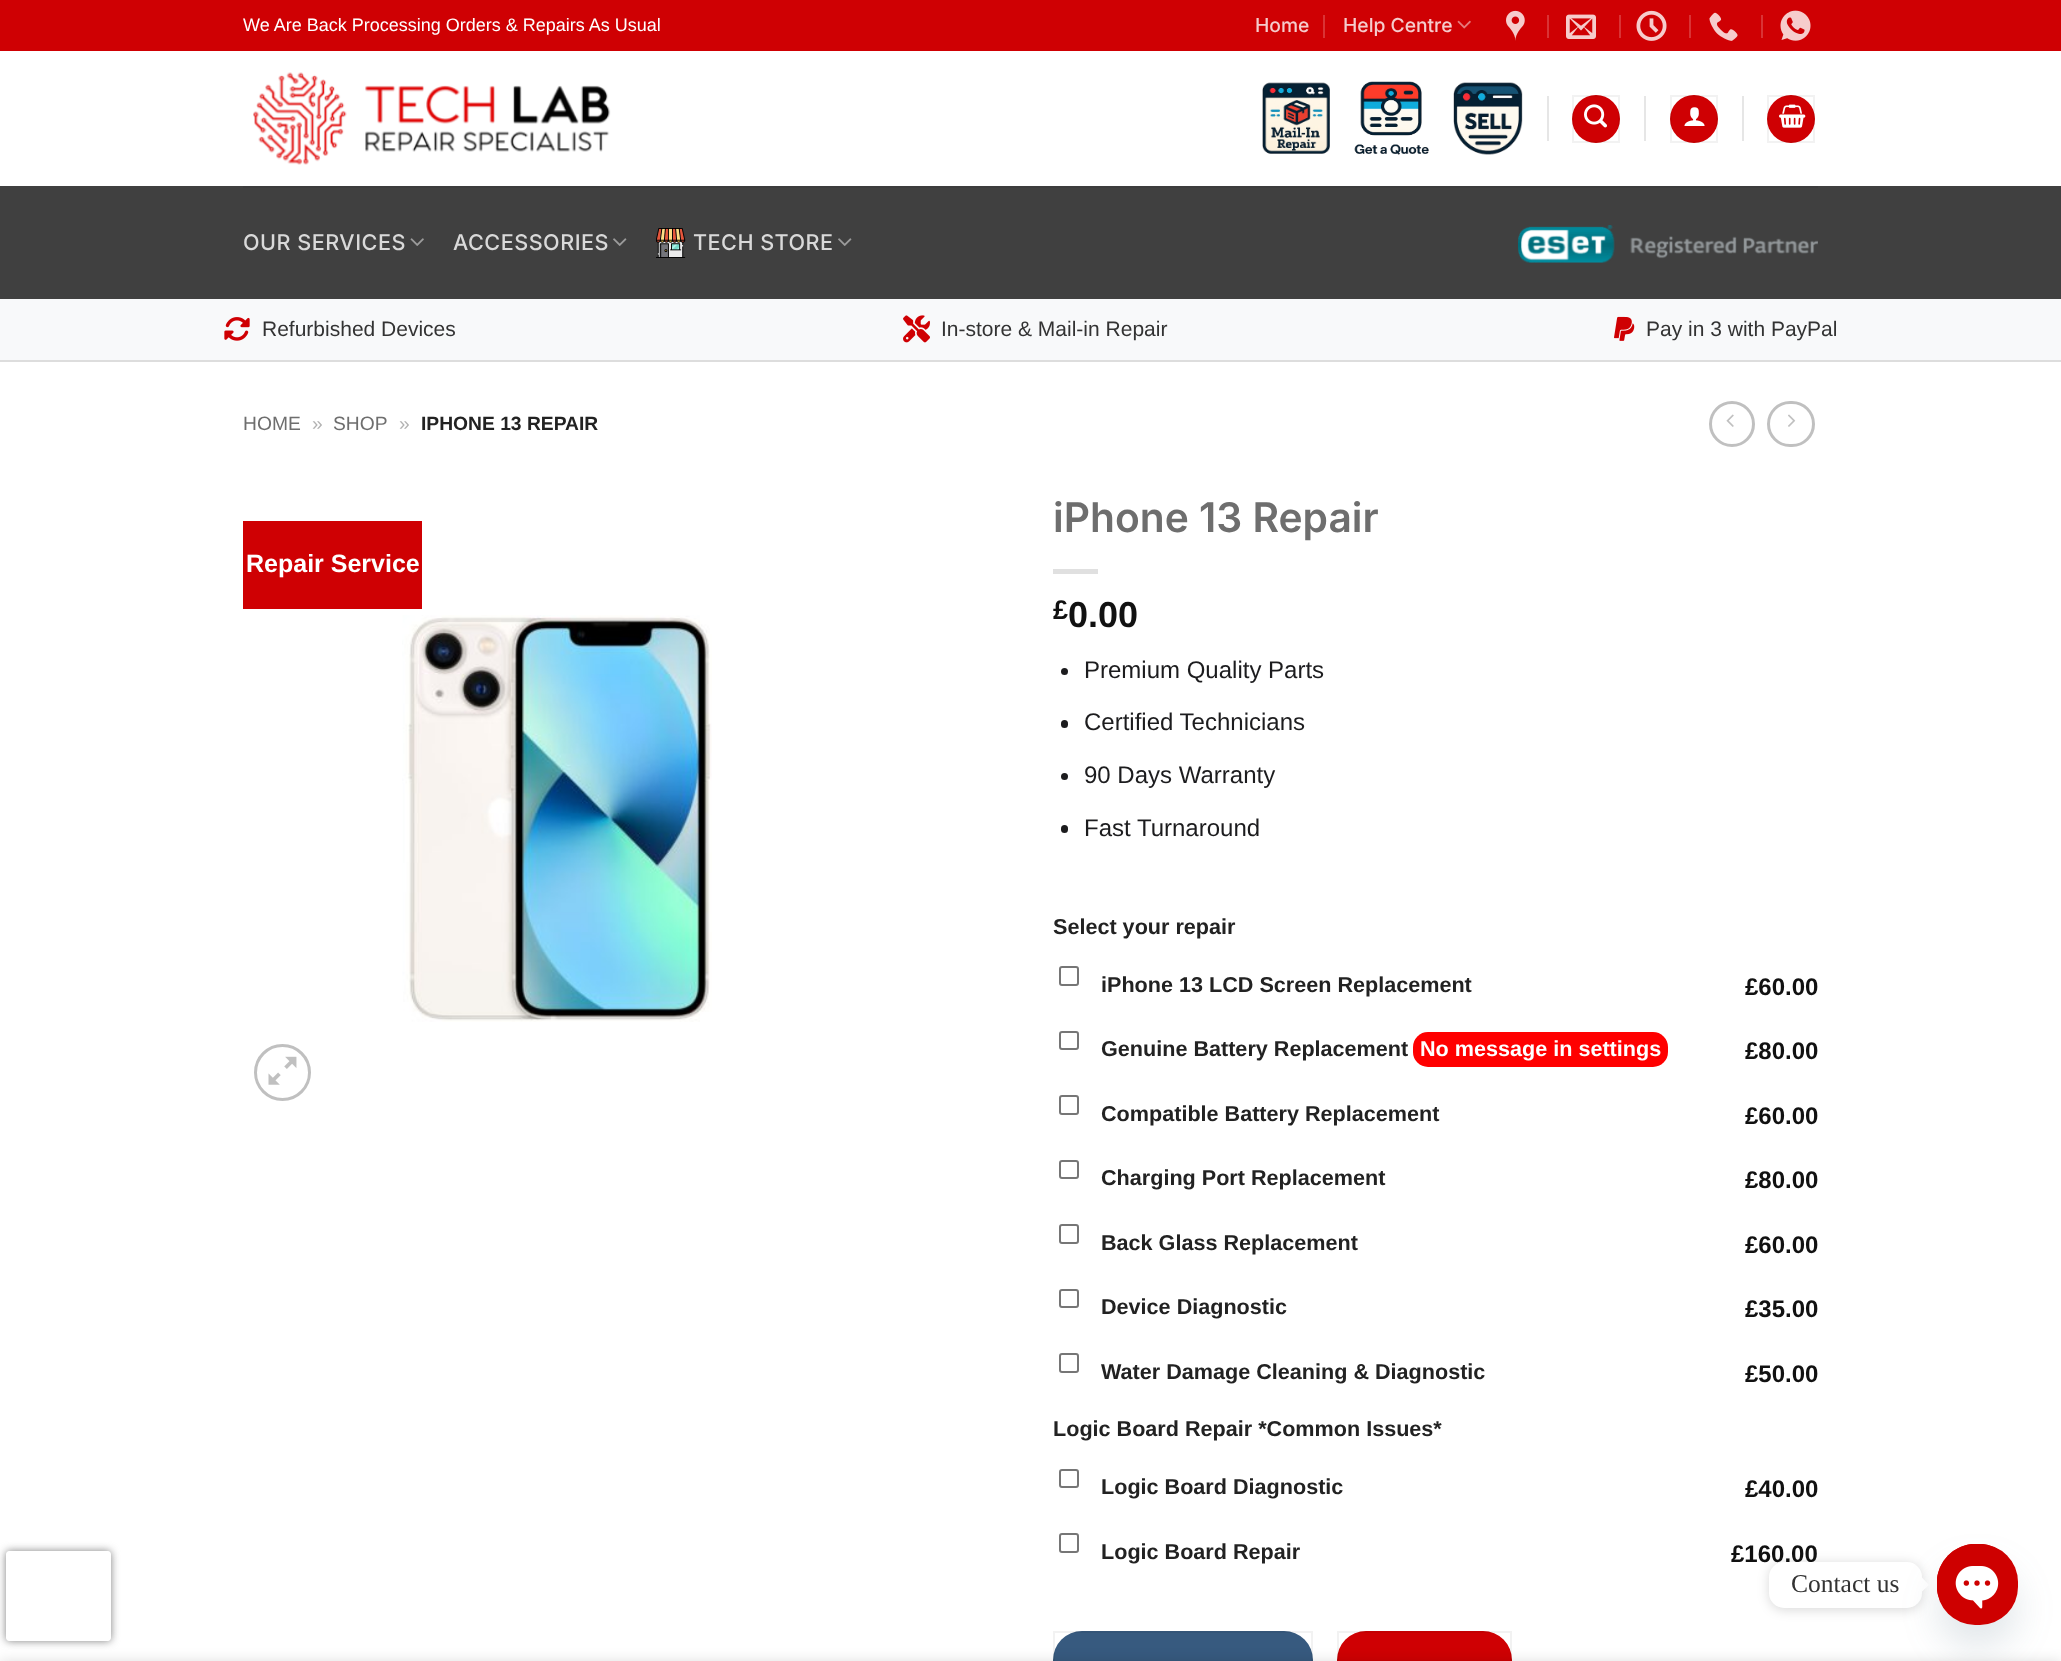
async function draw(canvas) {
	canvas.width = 2061;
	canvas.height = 1661;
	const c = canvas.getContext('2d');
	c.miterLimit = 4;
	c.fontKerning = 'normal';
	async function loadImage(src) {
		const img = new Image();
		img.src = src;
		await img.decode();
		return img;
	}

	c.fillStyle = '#fff';
	c.fillRect(0, 0, 2061, 1661);
	c.fillStyle = '#cf0003';
	c.fillRect(0, 0, 2061, 51);
	c.font = '18px Liberation Sans';
	c.fillStyle = '#fff';
	c.fillText('We Are Back Processing Orders & Repairs As Usual', 243, 31);
	c.font = '500 19.25px Inter';
	c.fillStyle = '#f5cccd';
	c.fillText('Home', 1255, 32);
	c.fillStyle = '#d93335';
	c.fillRect(1323, 15, 2, 23);
	c.fillStyle = '#f5cccd';
	c.fillText('Help Centre', 1343, 32);
	c.drawImage(await loadImage('img1.png'), 1457, 20, 14, 9);
	c.drawImage(await loadImage('img2.png'), 1506, 10, 19, 31);
	c.fillStyle = '#d93335';
	c.fillRect(1547, 15, 2, 23);
	c.drawImage(await loadImage('img3.png'), 1566, 14, 30, 25);
	c.fillRect(1619, 15, 2, 23);
	c.drawImage(await loadImage('img4.png'), 1636, 10, 31, 31);
	c.fillRect(1689, 15, 2, 23);
	c.drawImage(await loadImage('img5.png'), 1709, 12, 29, 29);
	c.fillRect(1761, 15, 2, 23);
	c.drawImage(await loadImage('img6.png'), 1780, 10, 31, 31);
	c.drawImage(await loadImage('img7.png'), 253, 72, 358, 93);
	c.drawImage(await loadImage('img8.png'), 1262, 82, 68, 72);
	c.drawImage(await loadImage('img9.png'), 1354, 81, 75, 74);
	c.drawImage(await loadImage('img10.png'), 1453, 82, 70, 73);
	c.fillStyle = '#e6e6e6';
	c.fillRect(1547, 96, 2, 45);
	c.fillStyle = '#cf0003';
	c.beginPath();
	c.arc(1596, 119, 24, 0, 2 * Math.PI);
	c.fill();
	c.strokeStyle = '#0000000d';
	c.lineWidth = 2;
	c.strokeRect(1573, 96, 46, 46);
	c.drawImage(await loadImage('img11.png'), 1584, 104, 23, 24);
	c.fillStyle = '#e6e6e6';
	c.fillRect(1644, 96, 2, 45);
	c.fillStyle = '#cf0003';
	c.beginPath();
	c.arc(1694, 119, 24, 0, 2 * Math.PI);
	c.fill();
	c.strokeRect(1671, 96, 46, 46);
	c.drawImage(await loadImage('img12.png'), 1684, 107, 21, 19);
	c.fillStyle = '#e6e6e6';
	c.fillRect(1742, 96, 2, 45);
	c.fillStyle = '#cf0003';
	c.beginPath();
	c.arc(1791, 119, 24, 0, 2 * Math.PI);
	c.fill();
	c.strokeRect(1768, 96, 46, 46);
	c.drawImage(await loadImage('img13.png'), 1779, 104, 27, 24);
	c.fillStyle = '#404040';
	c.fillRect(0, 186, 2061, 113);
	c.fillStyle = '#3c3c3d';
	c.fillRect(243, 186, 1575, 2);
	c.letterSpacing = '0.5px';
	c.font = '500 21.6px Inter';
	c.fillStyle = '#d9d9d9';
	c.fillText('OUR SERVICES', 243, 250);
	c.drawImage(await loadImage('img14.png'), 410, 238, 14, 8);
	c.fillText('ACCESSORIES', 453, 250);
	c.drawImage(await loadImage('img15.png'), 613, 238, 14, 8);
	c.drawImage(await loadImage('img16.png'), 656, 228, 30, 30);
	c.fillText('TECH STORE', 693, 250);
	c.drawImage(await loadImage('img15.png'), 838, 238, 14, 8);
	c.drawImage(await loadImage('img17.png'), 1518, 225, 300, 38);
	c.fillStyle = '#f8f9fa';
	c.fillRect(0, 299, 2061, 61);
	c.fillStyle = '#ddd';
	c.fillRect(0, 360, 2061, 2);
	c.drawImage(await loadImage('img18.png'), 224, 317, 26, 24);
	c.letterSpacing = '0px';
	c.font = '21px Liberation Sans';
	c.fillStyle = '#333';
	c.fillText('Refurbished Devices', 262, 336);
	c.drawImage(await loadImage('img19.png'), 903, 315, 27, 28);
	c.fillText('In-store & Mail-in Repair', 941, 336);
	c.drawImage(await loadImage('img20.png'), 1614, 316, 21, 25);
	c.fillText('Pay in 3 with PayPal', 1646, 336);
	c.font = '19.25px Liberation Sans';
	c.fillStyle = '#6e6e6e';
	c.fillText('HOME', 243, 430);
	c.fillStyle = '#b2b2b2';
	c.fillText('»', 312, 430);
	c.fillStyle = '#6e6e6e';
	c.fillText('SHOP', 333, 430);
	c.fillStyle = '#b2b2b2';
	c.fillText('»', 399, 430);
	c.font = 'bold 19.25px Liberation Sans';
	c.fillStyle = '#222';
	c.fillText('IPHONE 13 REPAIR', 421, 430);
	c.beginPath();
	c.arc(1732, 424, 21.5, 0, 2 * Math.PI);
	c.strokeStyle = '#c0c0c0';
	c.lineWidth = 3;
	c.stroke();
	c.drawImage(await loadImage('img21.png'), 1726, 414, 8, 13);
	c.beginPath();
	c.roundRect(1768.5, 402.5, 45, 43, 21.5);
	c.stroke();
	c.drawImage(await loadImage('img22.png'), 1788, 414, 8, 13);
	c.fillStyle = '#cf0003';
	c.fillRect(243, 521, 179, 88);
	c.font = 'bold 25px Liberation Sans';
	c.fillStyle = '#fff';
	c.fillText('Repair Service', 246, 572);
	c.drawImage(await loadImage('img23.png'), 402, 615, 310, 407);
	c.beginPath();
	c.arc(282.5, 1072.5, 27, 0, 2 * Math.PI);
	c.stroke();
	c.drawImage(await loadImage('img24.png'), 268, 1056, 29, 29);
	c.font = '600 40.75px Inter';
	c.fillStyle = '#6e6e6e';
	c.fillText('iPhone 13 Repair', 1053, 532);
	c.fillStyle = '#e0e0e0';
	c.fillRect(1053, 569, 45, 5);
	c.font = 'bold 27px Liberation Sans';
	c.fillStyle = '#111';
	c.fillText('£', 1053, 619);
	c.font = 'bold 36px Liberation Sans';
	c.fillText('0.00', 1068, 627);
	c.fillStyle = '#1c1c1e';
	c.beginPath();
	c.arc(1064.5, 671.5, 3.5, 0, 2 * Math.PI);
	c.fill();
	c.font = '24px Liberation Sans';
	c.fillText('Premium Quality Parts', 1084, 678);
	c.beginPath();
	c.roundRect(1061, 720, 7, 8, 3.5);
	c.fill();
	c.fillText('Certified Technicians', 1084, 730);
	c.beginPath();
	c.arc(1064.5, 776.5, 3.5, 0, 2 * Math.PI);
	c.fill();
	c.fillText('90 Days Warranty', 1084, 783);
	c.beginPath();
	c.roundRect(1061, 825, 7, 8, 3.5);
	c.fill();
	c.fillText('Fast Turnaround', 1084, 836);
	c.font = 'bold 21.6px Liberation Sans';
	c.fillStyle = '#222';
	c.fillText('Select your repair', 1053, 934);
	c.beginPath();
	c.roundRect(1060, 967, 18, 18, 2);
	c.strokeStyle = '#767676';
	c.lineWidth = 2;
	c.stroke();
	c.fillText('iPhone 13 LCD Screen Replacement', 1101, 992);
	c.font = 'bold 24px Liberation Sans';
	c.fillStyle = '#111';
	c.fillText('£60.00', 1745, 995);
	c.beginPath();
	c.roundRect(1060, 1032, 18, 17, 2);
	c.stroke();
	c.font = 'bold 21.6px Liberation Sans';
	c.fillStyle = '#222';
	c.fillText('Genuine Battery Replacement', 1101, 1056);
	c.fillStyle = '#f00';
	c.beginPath();
	c.roundRect(1413, 1032, 255, 35, 15);
	c.fill();
	c.fillStyle = '#fff';
	c.fillText('No message in settings', 1420, 1056);
	c.font = 'bold 24px Liberation Sans';
	c.fillStyle = '#111';
	c.fillText('£80.00', 1745, 1059);
	c.beginPath();
	c.roundRect(1060, 1096, 18, 18, 2);
	c.stroke();
	c.font = 'bold 21.6px Liberation Sans';
	c.fillStyle = '#222';
	c.fillText('Compatible Battery Replacement', 1101, 1121);
	c.font = 'bold 24px Liberation Sans';
	c.fillStyle = '#111';
	c.fillText('£60.00', 1745, 1124);
	c.beginPath();
	c.roundRect(1060, 1161, 18, 17, 2);
	c.stroke();
	c.font = 'bold 21.6px Liberation Sans';
	c.fillStyle = '#222';
	c.fillText('Charging Port Replacement', 1101, 1185);
	c.font = 'bold 24px Liberation Sans';
	c.fillStyle = '#111';
	c.fillText('£80.00', 1745, 1188);
	c.beginPath();
	c.roundRect(1060, 1225, 18, 18, 2);
	c.stroke();
	c.font = 'bold 21.6px Liberation Sans';
	c.fillStyle = '#222';
	c.fillText('Back Glass Replacement', 1101, 1250);
	c.font = 'bold 24px Liberation Sans';
	c.fillStyle = '#111';
	c.fillText('£60.00', 1745, 1253);
	c.beginPath();
	c.roundRect(1060, 1290, 18, 17, 2);
	c.stroke();
	c.font = 'bold 21.6px Liberation Sans';
	c.fillStyle = '#222';
	c.fillText('Device Diagnostic', 1101, 1314);
	c.font = 'bold 24px Liberation Sans';
	c.fillStyle = '#111';
	c.fillText('£35.00', 1745, 1317);
	c.beginPath();
	c.roundRect(1060, 1354, 18, 18, 2);
	c.stroke();
	c.font = 'bold 21.6px Liberation Sans';
	c.fillStyle = '#222';
	c.fillText('Water Damage Cleaning & Diagnostic', 1101, 1379);
	c.font = 'bold 24px Liberation Sans';
	c.fillStyle = '#111';
	c.fillText('£50.00', 1745, 1382);
	c.font = 'bold 21.6px Liberation Sans';
	c.fillStyle = '#222';
	c.fillText('Logic Board Repair *Common Issues*', 1053, 1436);
	c.beginPath();
	c.roundRect(1060, 1470, 18, 17, 2);
	c.stroke();
	c.fillText('Logic Board Diagnostic', 1101, 1494);
	c.font = 'bold 24px Liberation Sans';
	c.fillStyle = '#111';
	c.fillText('£40.00', 1745, 1497);
	c.beginPath();
	c.roundRect(1060, 1534, 18, 18, 2);
	c.stroke();
	c.font = 'bold 21.6px Liberation Sans';
	c.fillStyle = '#222';
	c.fillText('Logic Board Repair', 1101, 1559);
	c.font = 'bold 24px Liberation Sans';
	c.fillStyle = '#111';
	c.fillText('£160.00', 1731, 1562);
	c.fillStyle = '#375a7f';
	c.beginPath();
	c.roundRect(1053, 1631, 260, 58, 29);
	c.fill();
	c.strokeStyle = '#0000000d';
	c.strokeRect(1054, 1632, 258, 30);
	c.fillStyle = '#cf0003';
	c.beginPath();
	c.roundRect(1337, 1631, 175, 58, 29);
	c.fill();
	c.strokeRect(1338, 1632, 173, 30);
	c.save();
	c.beginPath();
	c.moveTo(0, 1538);
	c.lineTo(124, 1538);
	c.lineTo(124, 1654);
	c.lineTo(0, 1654);
	c.closePath();
	c.moveTo(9, 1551);
	c.lineTo(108, 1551);
	c.bezierCurveTo(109.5, 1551, 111, 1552.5, 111, 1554);
	c.lineTo(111, 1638);
	c.bezierCurveTo(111, 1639.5, 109.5, 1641, 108, 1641);
	c.lineTo(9, 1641);
	c.bezierCurveTo(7.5, 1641, 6, 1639.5, 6, 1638);
	c.lineTo(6, 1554);
	c.bezierCurveTo(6, 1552.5, 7.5, 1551, 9, 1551);
	c.closePath();
	c.clip('evenodd');
	c.fillStyle = '#808080';
	c.filter = 'blur(4px)';
	c.beginPath();
	c.roundRect(6, 1551, 105, 90, 3);
	c.fill();
	c.filter = 'none';
	c.restore();
	c.fillStyle = '#00000026';
	c.filter = 'blur(6px)';
	c.beginPath();
	c.roundRect(1769, 1563, 153, 47, 15);
	c.fill();
	c.filter = 'none';
	c.fillStyle = '#fff';
	c.beginPath();
	c.roundRect(1769, 1562, 153, 46, 15);
	c.fill();
	c.font = '25.5px Liberation Serif';
	c.fillStyle = '#333';
	c.fillText('Contact us', 1791, 1592);
	c.fillStyle = '#fff';
	c.beginPath();
	c.moveTo(1921.5, 1592);
	c.lineTo(1921.5, 1577);
	c.lineTo(1929, 1585);
	c.closePath();
	c.fill();
	c.fillStyle = '#49687e29';
	c.filter = 'blur(18px)';
	c.beginPath();
	c.roundRect(1937, 1568, 81, 81, 40.5);
	c.fill();
	c.filter = 'none';
	c.fillStyle = '#ce0000';
	c.beginPath();
	c.roundRect(1937, 1544, 81, 81, 38);
	c.fill();
	c.drawImage(await loadImage('img25.png'), 1937, 1544, 62, 65);
	c.fillStyle = '#00000024';
	c.filter = 'blur(7px)';
	c.beginPath();
	c.rect(0, 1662, 2061, 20);
	c.fill();
	c.filter = 'none';
}

draw(document.querySelector('canvas'));
